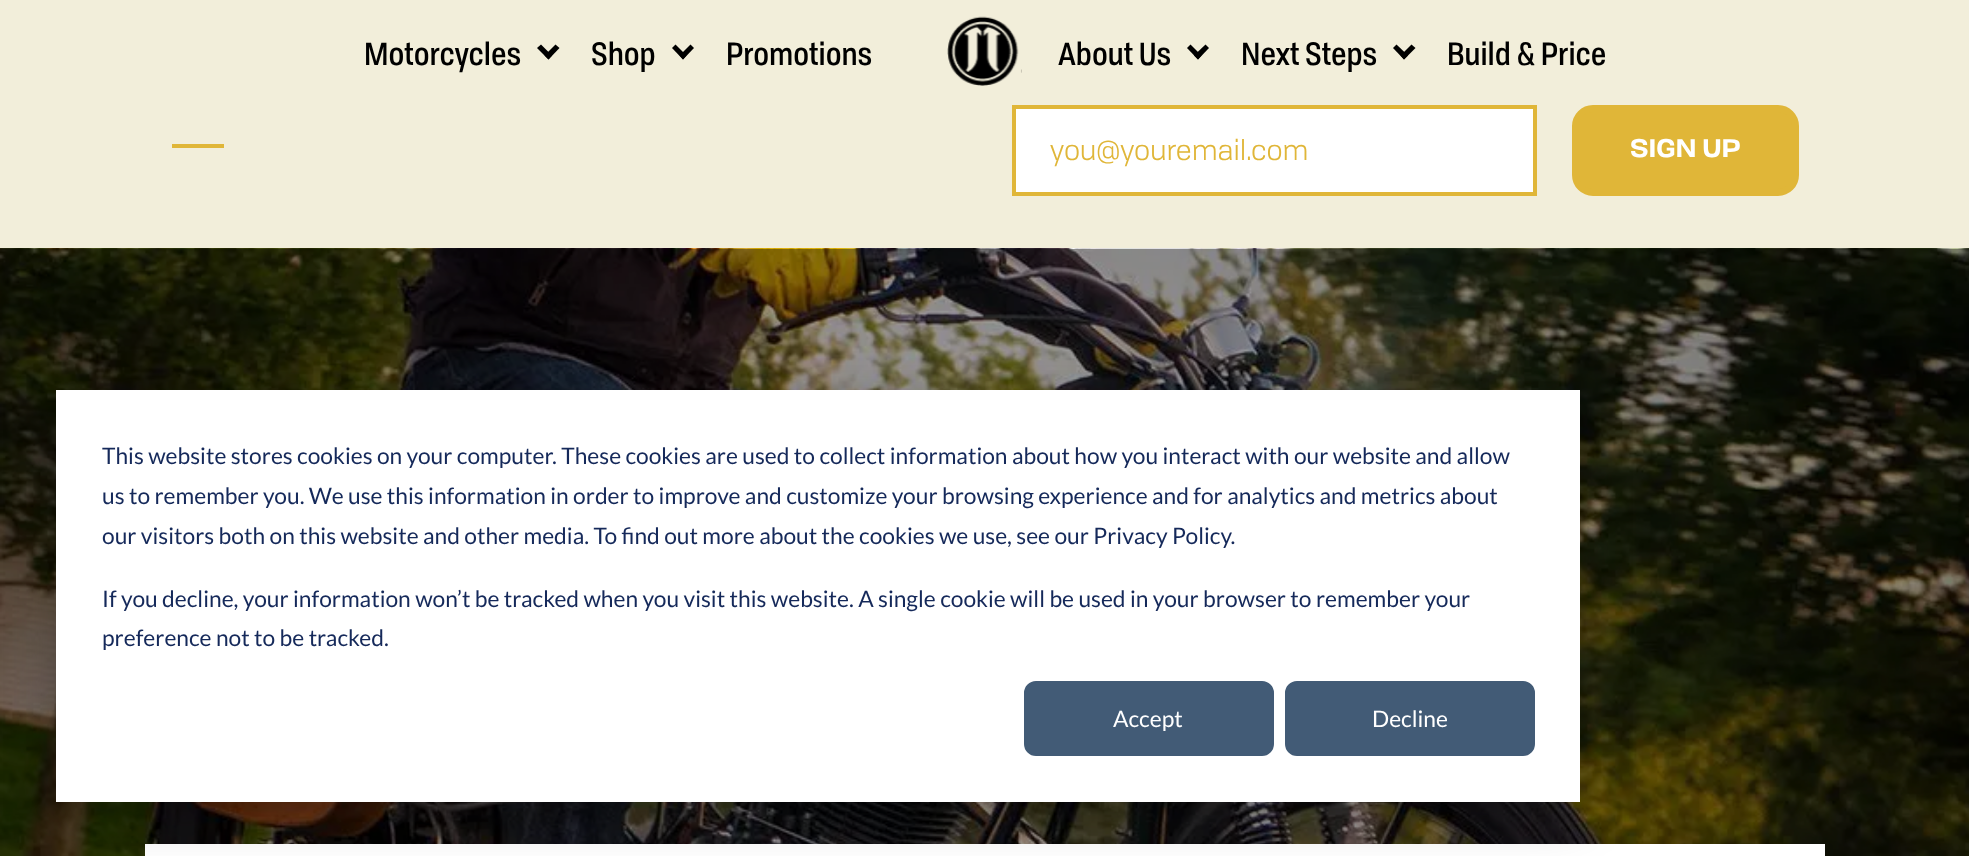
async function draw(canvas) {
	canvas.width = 1969;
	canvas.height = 856;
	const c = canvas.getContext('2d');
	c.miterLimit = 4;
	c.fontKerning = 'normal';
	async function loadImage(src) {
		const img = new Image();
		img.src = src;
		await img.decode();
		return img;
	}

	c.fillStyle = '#f2eeda';
	c.fillRect(0, 0, 1969, 856);
	c.font = '500 31.5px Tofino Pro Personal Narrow';
	c.fillStyle = '#000';
	c.fillText('Motorcycles', 364, 65);
	c.beginPath();
	c.moveTo(555.5, 44.5);
	c.lineTo(559.5, 48);
	c.lineTo(548.5, 59.5);
	c.lineTo(544.5, 55.5);
	c.closePath();
	c.fill();
	c.beginPath();
	c.moveTo(541, 44.5);
	c.lineTo(552, 55.5);
	c.lineTo(548.5, 59.5);
	c.lineTo(537, 48);
	c.closePath();
	c.fill();
	c.fillText('Shop', 591, 65);
	c.beginPath();
	c.moveTo(690.5, 44.5);
	c.lineTo(694, 48);
	c.lineTo(683, 59.5);
	c.lineTo(679.5, 55.5);
	c.closePath();
	c.fill();
	c.beginPath();
	c.moveTo(675.5, 44.5);
	c.lineTo(686.5, 55.5);
	c.lineTo(683, 59.5);
	c.lineTo(672, 48);
	c.closePath();
	c.fill();
	c.fillText('Promotions', 726, 65);
	c.drawImage(await loadImage('img1.png'), 947, 16, 75, 70);
	c.fillText('About Us', 1058, 65);
	c.beginPath();
	c.moveTo(1205.5, 44.5);
	c.lineTo(1209, 48);
	c.lineTo(1198, 59.5);
	c.lineTo(1194, 55.5);
	c.closePath();
	c.fill();
	c.beginPath();
	c.moveTo(1190.5, 44.5);
	c.lineTo(1201.5, 55.5);
	c.lineTo(1198, 59.5);
	c.lineTo(1187, 48);
	c.closePath();
	c.fill();
	c.fillText('Next Steps', 1241, 65);
	c.beginPath();
	c.moveTo(1411.5, 44.5);
	c.lineTo(1415.5, 48);
	c.lineTo(1404, 59.5);
	c.lineTo(1400.5, 55.5);
	c.closePath();
	c.fill();
	c.beginPath();
	c.moveTo(1396.5, 44.5);
	c.lineTo(1408, 55.5);
	c.lineTo(1404, 59.5);
	c.lineTo(1393, 48);
	c.closePath();
	c.fill();
	c.fillText('Build & Price', 1447, 65);
	c.fillStyle = '#e0b638';
	c.fillRect(172, 144, 52, 4);
	c.fillStyle = '#fff';
	c.beginPath();
	c.rect(1014, 107, 521, 87);
	c.fill();
	c.strokeStyle = '#e0b638';
	c.lineWidth = 4;
	c.stroke();
	c.font = '28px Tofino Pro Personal';
	c.fillStyle = '#e0b638';
	c.fillText('you@youremail.com', 1050, 160);
	c.beginPath();
	c.roundRect(1575.5, 108.5, 220, 84, 17.5);
	c.fill();
	c.lineWidth = 7;
	c.stroke();
	c.font = 'bold 24.5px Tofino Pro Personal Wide';
	c.fillStyle = '#fff';
	c.fillText('SIGN UP', 1630, 157);
	c.drawImage(await loadImage('img2.png'), 0, 248, 1969, 608);
	c.fillRect(145, 844, 1680, 12);
	c.fillStyle = '#00000047';
	c.filter = 'blur(24.5px)';
	c.beginPath();
	c.rect(56, 404, 1524, 412);
	c.fill();
	c.filter = 'none';
	c.fillStyle = '#fff';
	c.fillRect(56, 390, 1524, 412);
	c.font = '22.75px Lato';
	c.fillStyle = '#15295a';
	for (const [text, x, y] of [
		['This website stores cookies on your computer. These cookies are used to collect information about how you interact with our website and allow', 102, 464],
		['us to remember you. We use this information in order to improve and customize your browsing experience and for analytics and metrics about', 102, 504],
		['our visitors both on this website and other media. To find out more about the cookies we use, see our Privacy Policy.', 102, 544],
		['If you decline, your information won’t be tracked when you visit this website. A single cookie will be used in your browser to remember your', 102, 607],
		['preference not to be tracked.', 102, 646],
	]) {
		c.fillText(text, x, y);
	}
	c.fillStyle = '#425b76';
	c.beginPath();
	c.roundRect(1025, 682, 248, 73, 11);
	c.fill();
	c.strokeStyle = '#425b76';
	c.lineWidth = 2;
	c.stroke();
	c.fillStyle = '#fff';
	c.fillText('Accept', 1113, 727);
	c.fillStyle = '#425b76';
	c.beginPath();
	c.roundRect(1286, 682, 248, 73, 11);
	c.fill();
	c.stroke();
	c.fillStyle = '#fff';
	c.fillText('Decline', 1372, 727);
}

draw(document.querySelector('canvas'));
